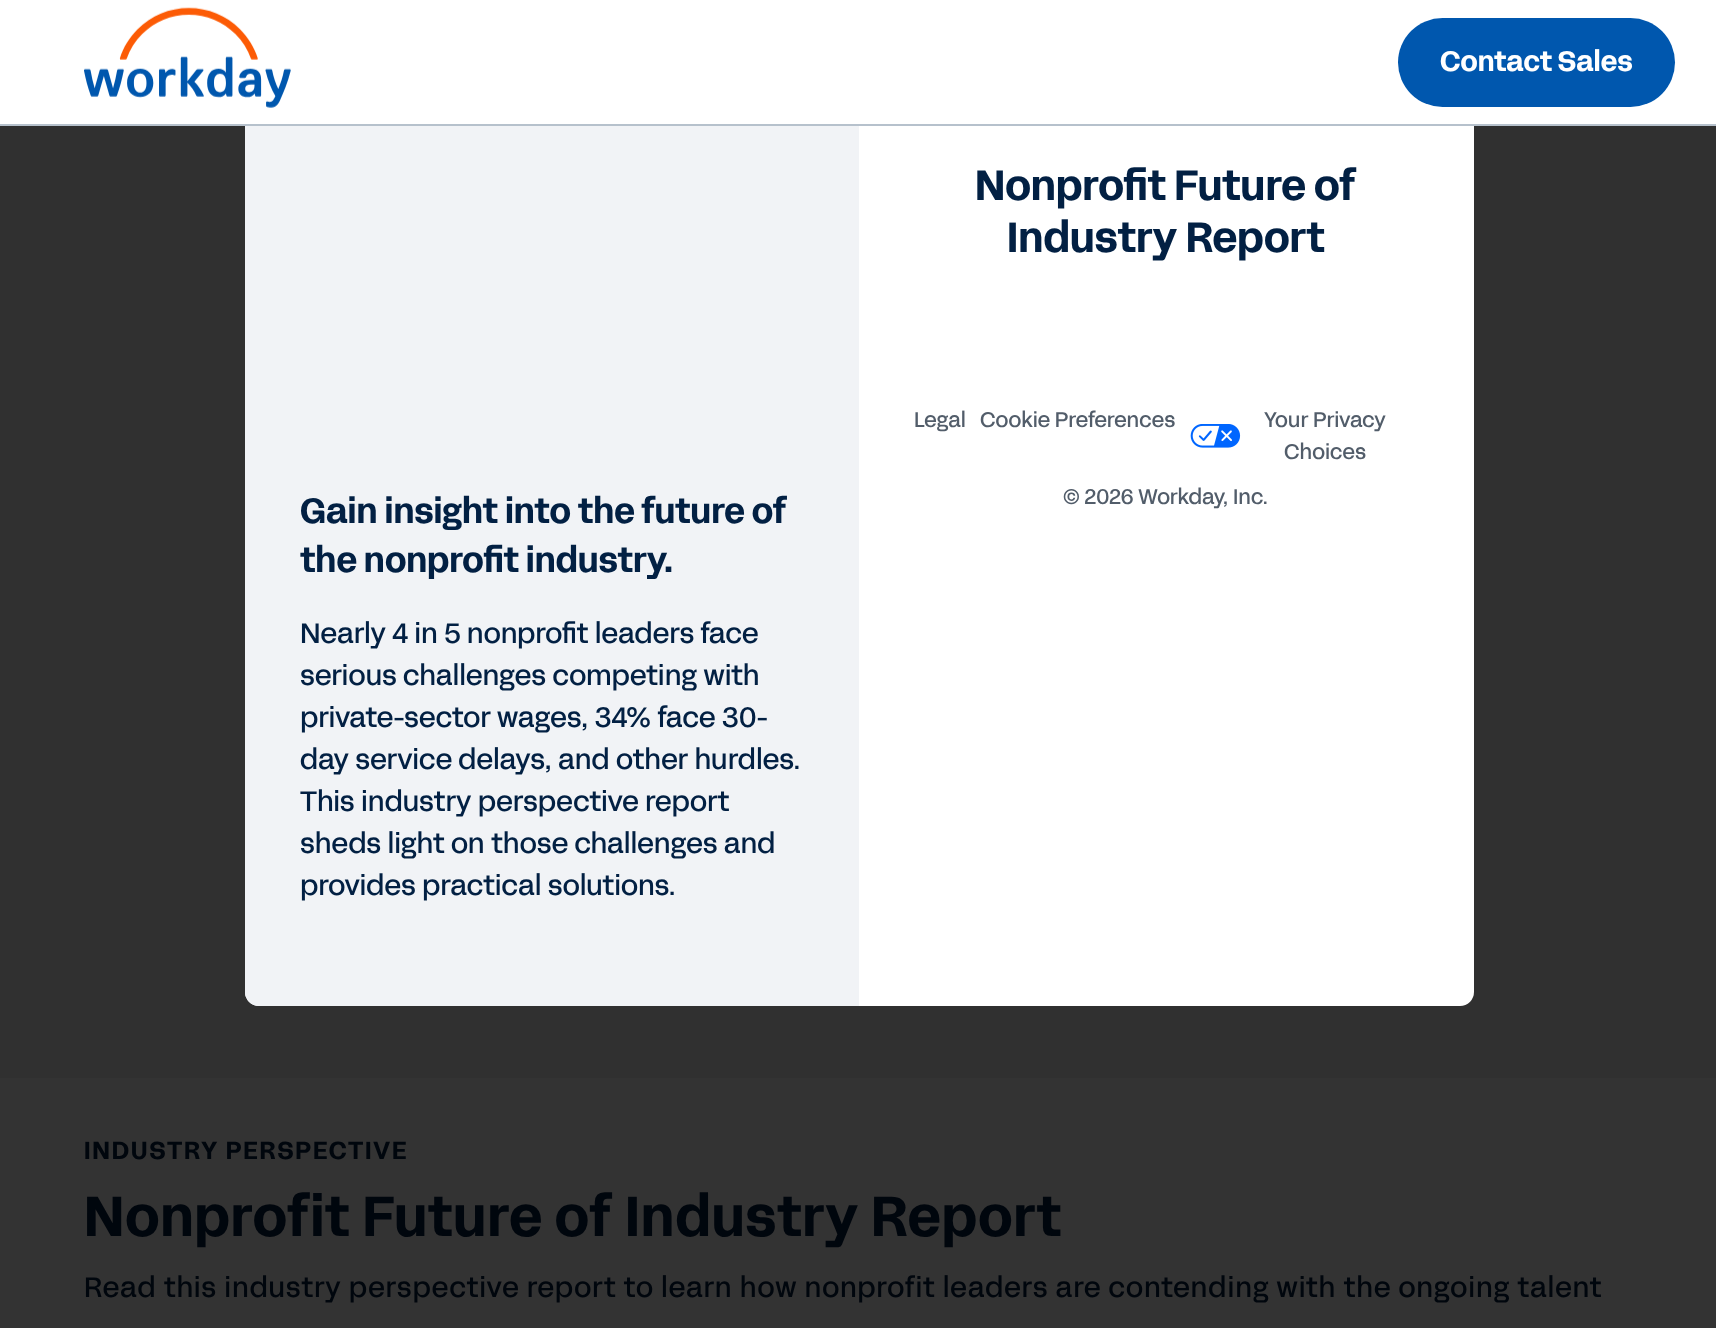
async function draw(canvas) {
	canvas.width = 1716;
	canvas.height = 1328;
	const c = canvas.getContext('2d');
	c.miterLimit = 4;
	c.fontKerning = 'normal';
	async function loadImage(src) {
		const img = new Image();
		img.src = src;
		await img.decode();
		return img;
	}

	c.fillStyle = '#333';
	c.fillRect(0, 0, 1716, 1328);
	c.fillStyle = '#303030';
	c.fillRect(0, 126, 1716, 952);
	c.fillStyle = '#fff';
	c.beginPath();
	c.roundRect(245, 56, 1229, 950, 14);
	c.fill();
	c.fillStyle = '#f1f3f6';
	c.beginPath();
	c.roundRect(245, 56, 614, 950, [14, 0, 0, 14]);
	c.fill();
	c.fillStyle = '#fff';
	c.fillRect(0, 0, 1716, 124);
	c.fillStyle = '#b6c1cc';
	c.fillRect(0, 124, 1716, 2);
	c.drawImage(await loadImage('img1.png'), 84, 7, 207, 101);
	c.fillStyle = '#0057ae';
	c.beginPath();
	c.roundRect(1398, 18, 277, 89, 44.5);
	c.fill();
	c.font = 'bold 28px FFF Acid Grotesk';
	c.fillStyle = '#fff';
	c.fillText('Contact Sales', 1440, 71);
	c.letterSpacing = '1.75px';
	c.font = 'bold 24.5px FFF Acid Grotesk';
	c.fillStyle = '#00060d';
	c.fillText('INDUSTRY PERSPECTIVE', 84, 1159);
	c.letterSpacing = '0.88px';
	c.font = 'bold 56px FFF Acid Grotesk';
	c.fillText('Nonprofit Future of Industry Report', 84, 1236);
	c.font = '28px FFF Acid Grotesk';
	c.fillText('Read this industry perspective report to learn how nonprofit leaders are contending with the ongoing talent', 84, 1297);
	c.letterSpacing = '0px';
	c.font = 'bold 42px FFF Acid Grotesk';
	c.fillStyle = '#022043';
	c.fillText('Nonprofit Future of', 975, 200);
	c.fillText('Industry Report', 1007, 252);
	c.font = '21px FFF Acid Grotesk';
	c.fillStyle = '#525d6a';
	c.fillText('Legal', 914, 427);
	c.fillText('Cookie Preferences', 980, 427);
	c.drawImage(await loadImage('img2.png'), 1190, 424, 51, 24);
	for (const [text, x, y] of [
		['Your Privacy', 1264, 427],
		['Choices', 1284, 459],
		['© 2026 Workday, Inc.', 1063, 504],
	]) {
		c.fillText(text, x, y);
	}
	c.font = 'bold 35px FFF Acid Grotesk';
	c.fillStyle = '#022043';
	c.fillText('Gain insight into the future of', 300, 523);
	c.fillText('the nonprofit industry.', 300, 572);
	c.font = '28px FFF Acid Grotesk';
	for (const [text, x, y] of [
		['Nearly 4 in 5 nonprofit leaders face', 300, 643],
		['serious challenges competing with', 300, 685],
		['private-sector wages, 34% face 30-', 300, 727],
		['day service delays, and other hurdles.', 300, 769],
		['This industry perspective report', 300, 811],
		['sheds light on those challenges and', 300, 853],
		['provides practical solutions.', 300, 895],
	]) {
		c.fillText(text, x, y);
	}
}

draw(document.querySelector('canvas'));
